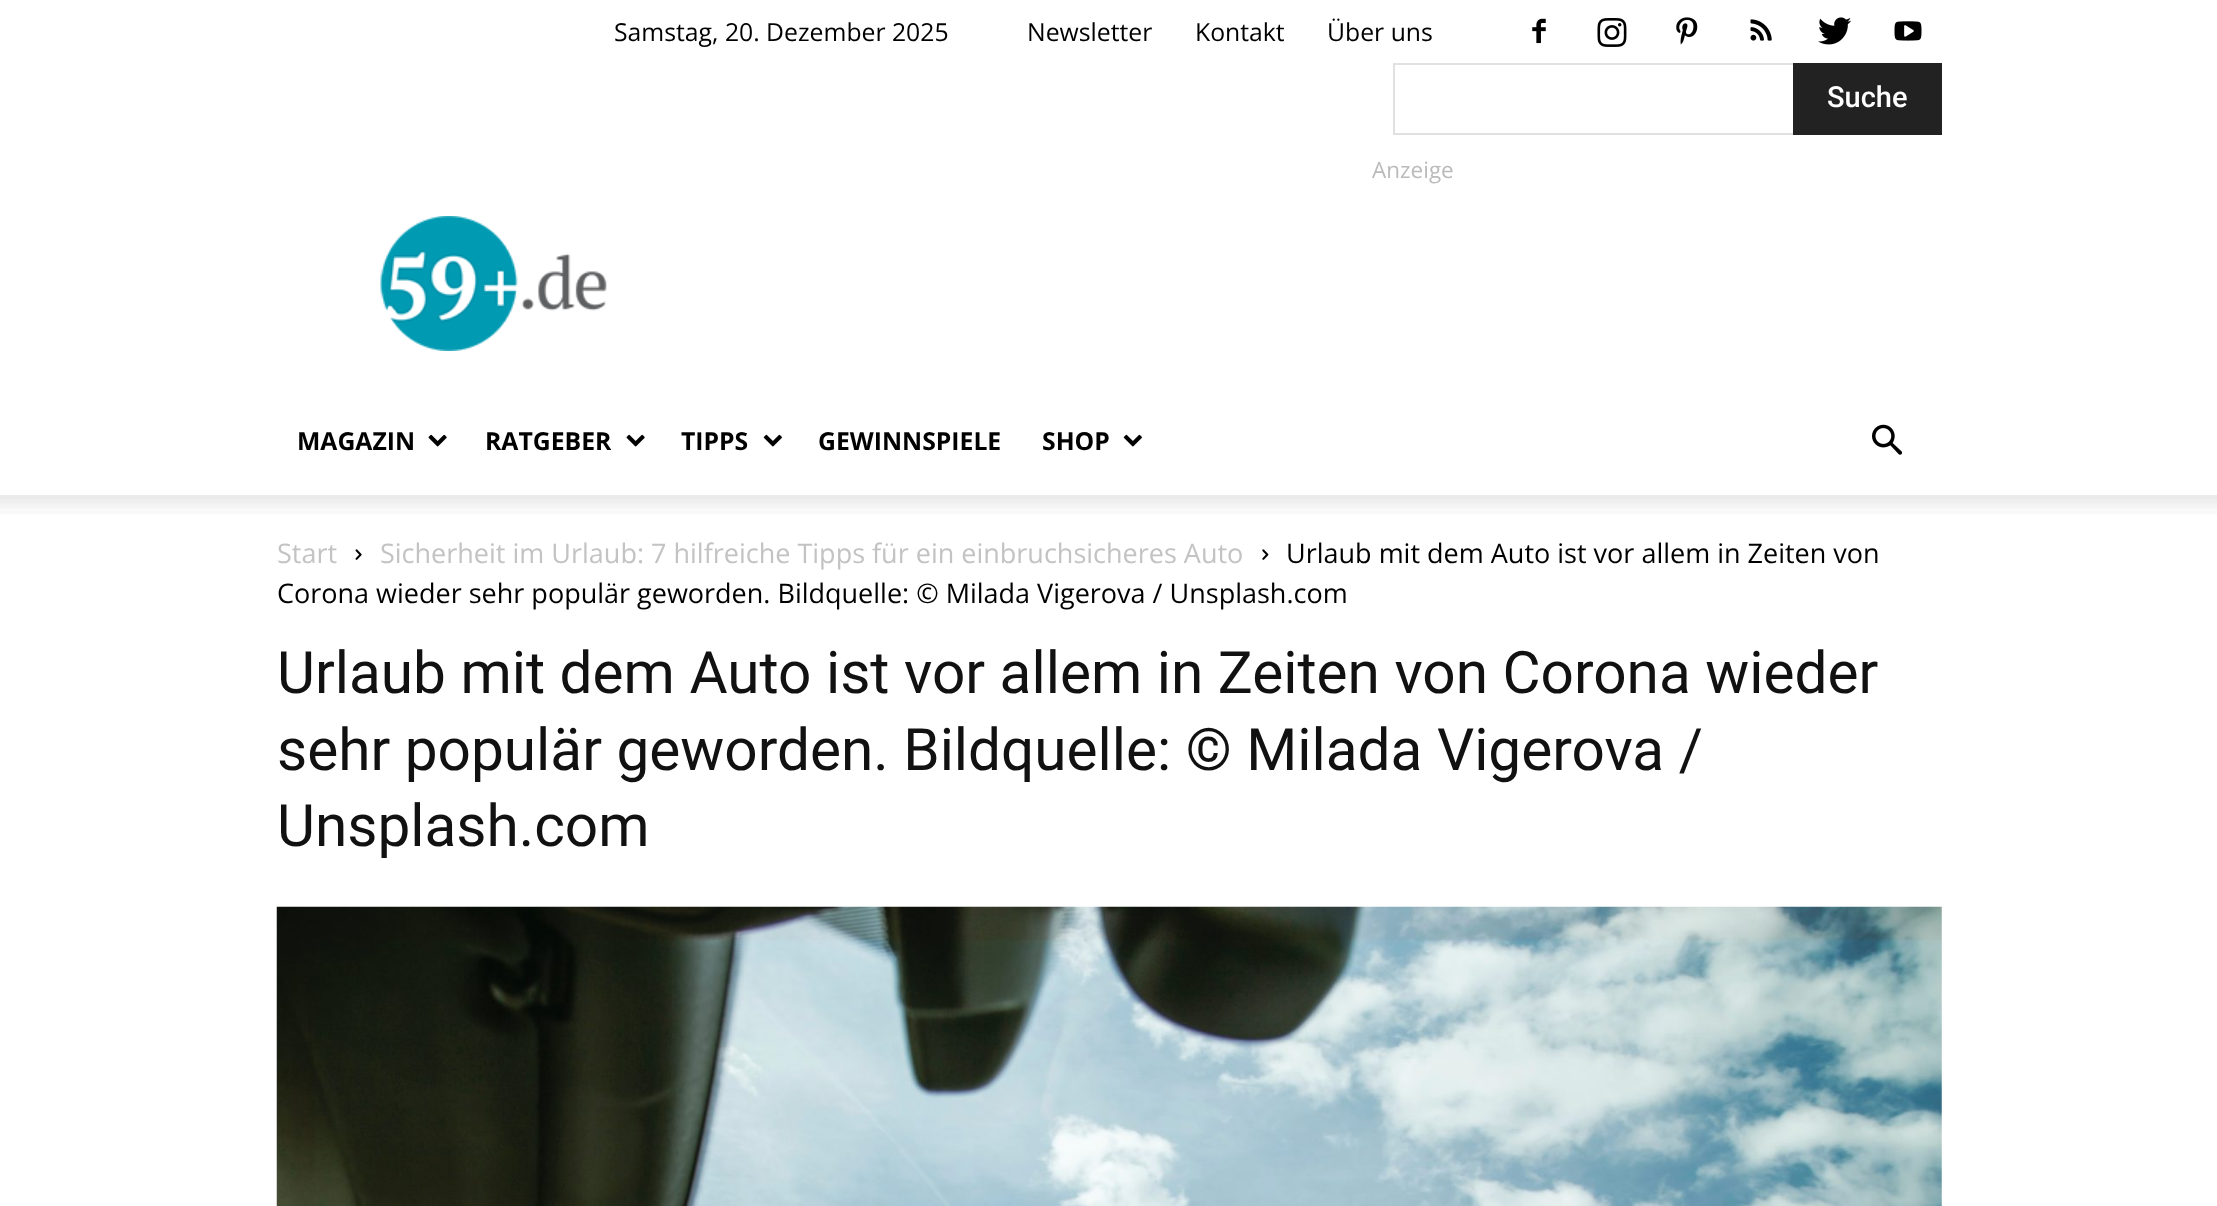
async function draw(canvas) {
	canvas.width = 2217;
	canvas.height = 1206;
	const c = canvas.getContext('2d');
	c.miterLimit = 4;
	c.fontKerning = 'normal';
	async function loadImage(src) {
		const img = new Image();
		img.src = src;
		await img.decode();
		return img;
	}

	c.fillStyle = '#fff';
	c.fillRect(0, 0, 2217, 1206);
	c.font = '24.75px Open Sans';
	c.fillStyle = '#000';
	for (const [text, x, y] of [
		['Samstag, 20. Dezember 2025', 614, 41],
		['Newsletter', 1027, 41],
		['Kontakt', 1195, 41],
		['Über uns', 1327, 41],
	]) {
		c.fillText(text, x, y);
	}
	c.drawImage(await loadImage('img1.png'), 1532, 18, 14, 26);
	c.drawImage(await loadImage('img2.png'), 1597, 18, 30, 29);
	c.drawImage(await loadImage('img3.png'), 1676, 17, 22, 28);
	c.drawImage(await loadImage('img4.png'), 1750, 19, 22, 22);
	c.drawImage(await loadImage('img5.png'), 1818, 17, 34, 28);
	c.drawImage(await loadImage('img6.png'), 1894, 21, 28, 20);
	for (const [x, y, w, h, color] of [
		[1393, 63, 400, 2, '#e1e1e1'],
		[1393, 133, 400, 2, '#e1e1e1'],
		[1393, 63, 2, 72, '#e1e1e1'],
		[1793, 63, 149, 72, '#222'],
	]) {
		c.fillStyle = color;
		c.fillRect(x, y, w, h);
	}
	c.font = '500 29px Roboto';
	c.fillStyle = '#fff';
	c.fillText('Suche', 1827, 107);
	c.font = '22.5px Open Sans';
	c.fillStyle = '#bbb';
	c.fillText('Anzeige', 1372, 178);
	c.drawImage(await loadImage('img7.png'), 380, 216, 227, 135);
	c.font = 'bold 24.75px Open Sans';
	c.fillStyle = '#000';
	c.fillText('MAGAZIN', 297, 450);
	c.drawImage(await loadImage('img8.png'), 428, 434, 19, 13);
	c.fillText('RATGEBER', 485, 450);
	c.drawImage(await loadImage('img8.png'), 626, 434, 19, 13);
	c.fillText('TIPPS', 681, 450);
	c.drawImage(await loadImage('img9.png'), 763, 434, 19, 13);
	c.fillText('GEWINNSPIELE', 818, 450);
	c.fillText('SHOP', 1042, 450);
	c.drawImage(await loadImage('img9.png'), 1123, 434, 19, 13);
	c.drawImage(await loadImage('img10.png'), 1872, 424, 31, 31);
	c.drawImage(await loadImage('img11.png'), 0, 495, 2217, 19);
	c.font = '27px Open Sans';
	c.fillStyle = '#c3c3c3';
	c.fillText('Start', 277, 563);
	c.drawImage(await loadImage('img12.png'), 355, 549, 7, 11);
	c.fillText('Sicherheit im Urlaub: 7 hilfreiche Tipps für ein einbruchsicheres Auto', 380, 563);
	c.drawImage(await loadImage('img13.png'), 1262, 549, 7, 11);
	c.fillStyle = '#000';
	c.fillText('Urlaub mit dem Auto ist vor allem in Zeiten von', 1286, 563);
	c.fillText('Corona wieder sehr populär geworden. Bildquelle: © Milada Vigerova / Unsplash.com', 277, 603);
	c.font = '58.5px Roboto';
	c.fillStyle = '#111';
	for (const [text, x, y] of [
		['Urlaub mit dem Auto ist vor allem in Zeiten von Corona wieder', 277, 693],
		['sehr populär geworden. Bildquelle: © Milada Vigerova /', 277, 770],
		['Unsplash.com', 277, 846],
	]) {
		c.fillText(text, x, y);
	}
	c.drawImage(await loadImage('img14.png'), 276, 906, 1666, 300);
}

draw(document.querySelector('canvas'));
